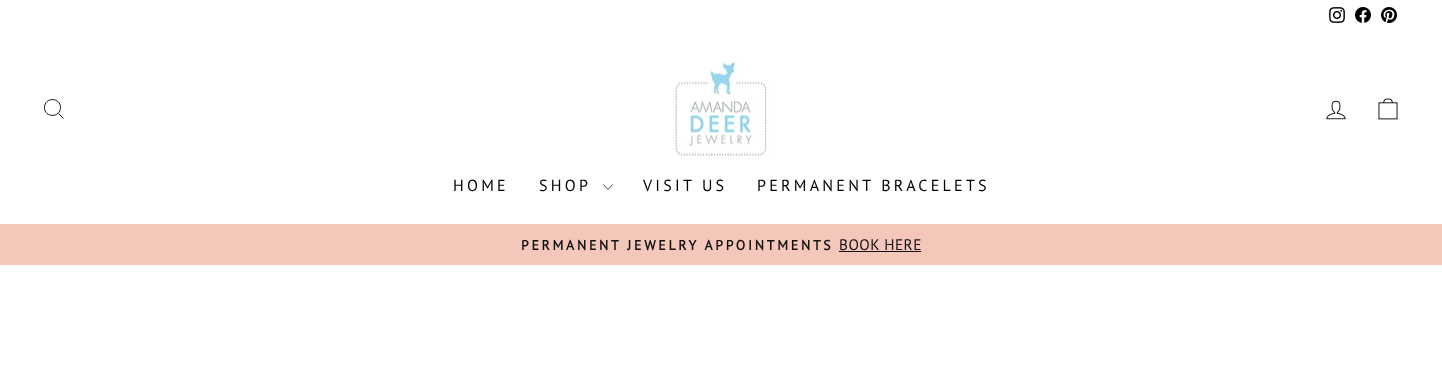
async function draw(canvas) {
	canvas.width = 1442;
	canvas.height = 379;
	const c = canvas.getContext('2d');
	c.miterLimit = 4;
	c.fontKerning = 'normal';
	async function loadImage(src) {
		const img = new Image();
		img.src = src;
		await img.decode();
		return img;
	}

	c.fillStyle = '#fff';
	c.fillRect(0, 0, 1442, 379);
	c.drawImage(await loadImage('img1.png'), 1329, 7, 16, 16);
	c.drawImage(await loadImage('img2.png'), 1355, 7, 16, 16);
	c.drawImage(await loadImage('img3.png'), 1381, 7, 16, 16);
	c.beginPath();
	c.moveTo(60.5, 107.5);
	c.bezierCurveTo(60.5, 118, 44.5, 118, 44.5, 107.5);
	c.bezierCurveTo(44.5, 97, 60.5, 97, 60.5, 107.5);
	c.closePath();
	c.moveTo(63.5, 118.5);
	c.lineTo(58.5, 113.5);
	c.strokeStyle = '#000';
	c.lineWidth = 0.9;
	c.stroke();
	c.drawImage(await loadImage('img4.png'), 675, 61, 94, 95);
	c.drawImage(await loadImage('img5.png'), 1326, 100, 20, 20);
	c.drawImage(await loadImage('img6.png'), 1378, 98, 20, 22);
	c.letterSpacing = '3.25px';
	c.font = '16px PT Sans';
	c.fillStyle = '#000';
	c.fillText('HOME', 453, 191);
	c.fillText('SHOP', 539, 191);
	c.beginPath();
	c.moveTo(603.5, 184.5);
	c.lineTo(608, 189.5);
	c.lineTo(612.5, 184.5);
	c.lineWidth = 0.7;
	c.stroke();
	c.fillText('VISIT US', 643, 191);
	c.fillText('PERMANENT BRACELETS', 757, 191);
	c.fillStyle = '#f4c7ba';
	c.fillRect(0, 224, 1442, 41);
	c.letterSpacing = '2.75px';
	c.font = 'bold 13.75px PT Sans';
	c.fillStyle = '#111';
	c.fillText('PERMANENT JEWELRY APPOINTMENTS', 521, 250);
	c.letterSpacing = '0.5px';
	c.font = '15.25px PT Sans';
	c.fillText('BOOK HERE', 839, 250);
	c.fillRect(839, 251, 82, 1);
}

draw(document.querySelector('canvas'));
